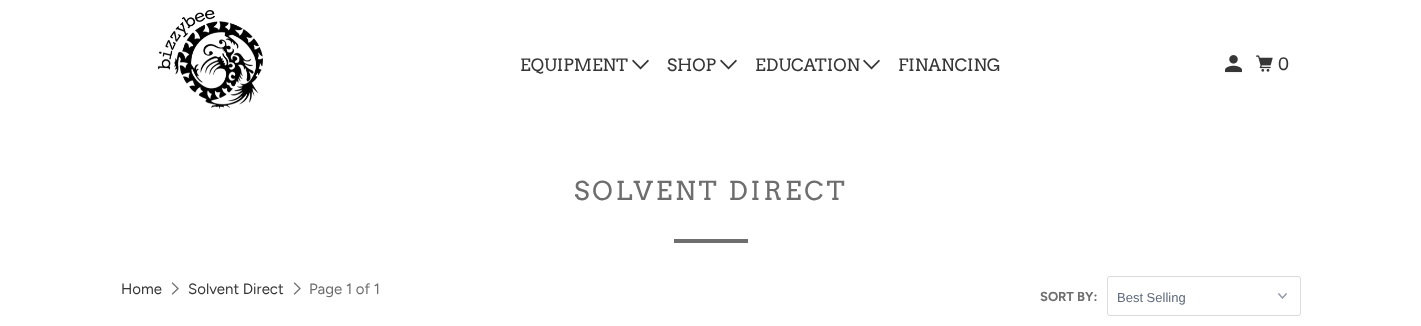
async function draw(canvas) {
	canvas.width = 1421;
	canvas.height = 326;
	const c = canvas.getContext('2d');
	c.miterLimit = 4;
	c.fontKerning = 'normal';
	async function loadImage(src) {
		const img = new Image();
		img.src = src;
		await img.decode();
		return img;
	}

	c.fillStyle = '#fff';
	c.fillRect(0, 0, 1421, 326);
	c.drawImage(await loadImage('img1.png'), 157, 10, 106, 99);
	c.font = '17px Arvo';
	c.fillStyle = '#363636';
	c.fillText('EQUIPMENT', 520, 71);
	c.drawImage(await loadImage('img2.png'), 632, 59, 17, 11);
	c.fillText('SHOP', 667, 71);
	c.drawImage(await loadImage('img2.png'), 720, 59, 17, 11);
	c.fillText('EDUCATION', 755, 71);
	c.drawImage(await loadImage('img2.png'), 863, 59, 17, 11);
	c.fillText('FINANCING', 898, 71);
	c.drawImage(await loadImage('img3.png'), 1225, 55, 17, 18);
	c.drawImage(await loadImage('img4.png'), 1256, 55, 17, 17);
	c.fillText('0', 1278, 70);
	c.letterSpacing = '3px';
	c.font = '26px Arvo';
	c.fillStyle = '#6e6e6e';
	c.fillText('SOLVENT DIRECT', 574, 200);
	c.fillRect(674, 239, 74, 4);
	c.letterSpacing = '0px';
	c.font = '15px Figtree';
	c.fillStyle = '#363636';
	c.fillText('Home', 121, 294);
	c.drawImage(await loadImage('img5.png'), 171, 282, 8, 13);
	c.fillText('Solvent Direct', 188, 294);
	c.drawImage(await loadImage('img5.png'), 293, 282, 8, 13);
	c.fillStyle = '#6e6e6e';
	c.fillText('Page 1 of 1', 309, 294);
	c.font = 'bold 13px Figtree';
	c.fillText('SORT BY:', 1040, 301);
	c.drawImage(await loadImage('img6.png'), 1278, 293, 9, 6);
	c.beginPath();
	c.roundRect(1107.5, 276.5, 193, 39, 2.5);
	c.strokeStyle = '#d9dbdc';
	c.stroke();
	c.font = '13px Liberation Sans';
	c.fillStyle = '#5f6a7d';
	c.fillText('Best Selling', 1117, 302);
}

draw(document.querySelector('canvas'));
